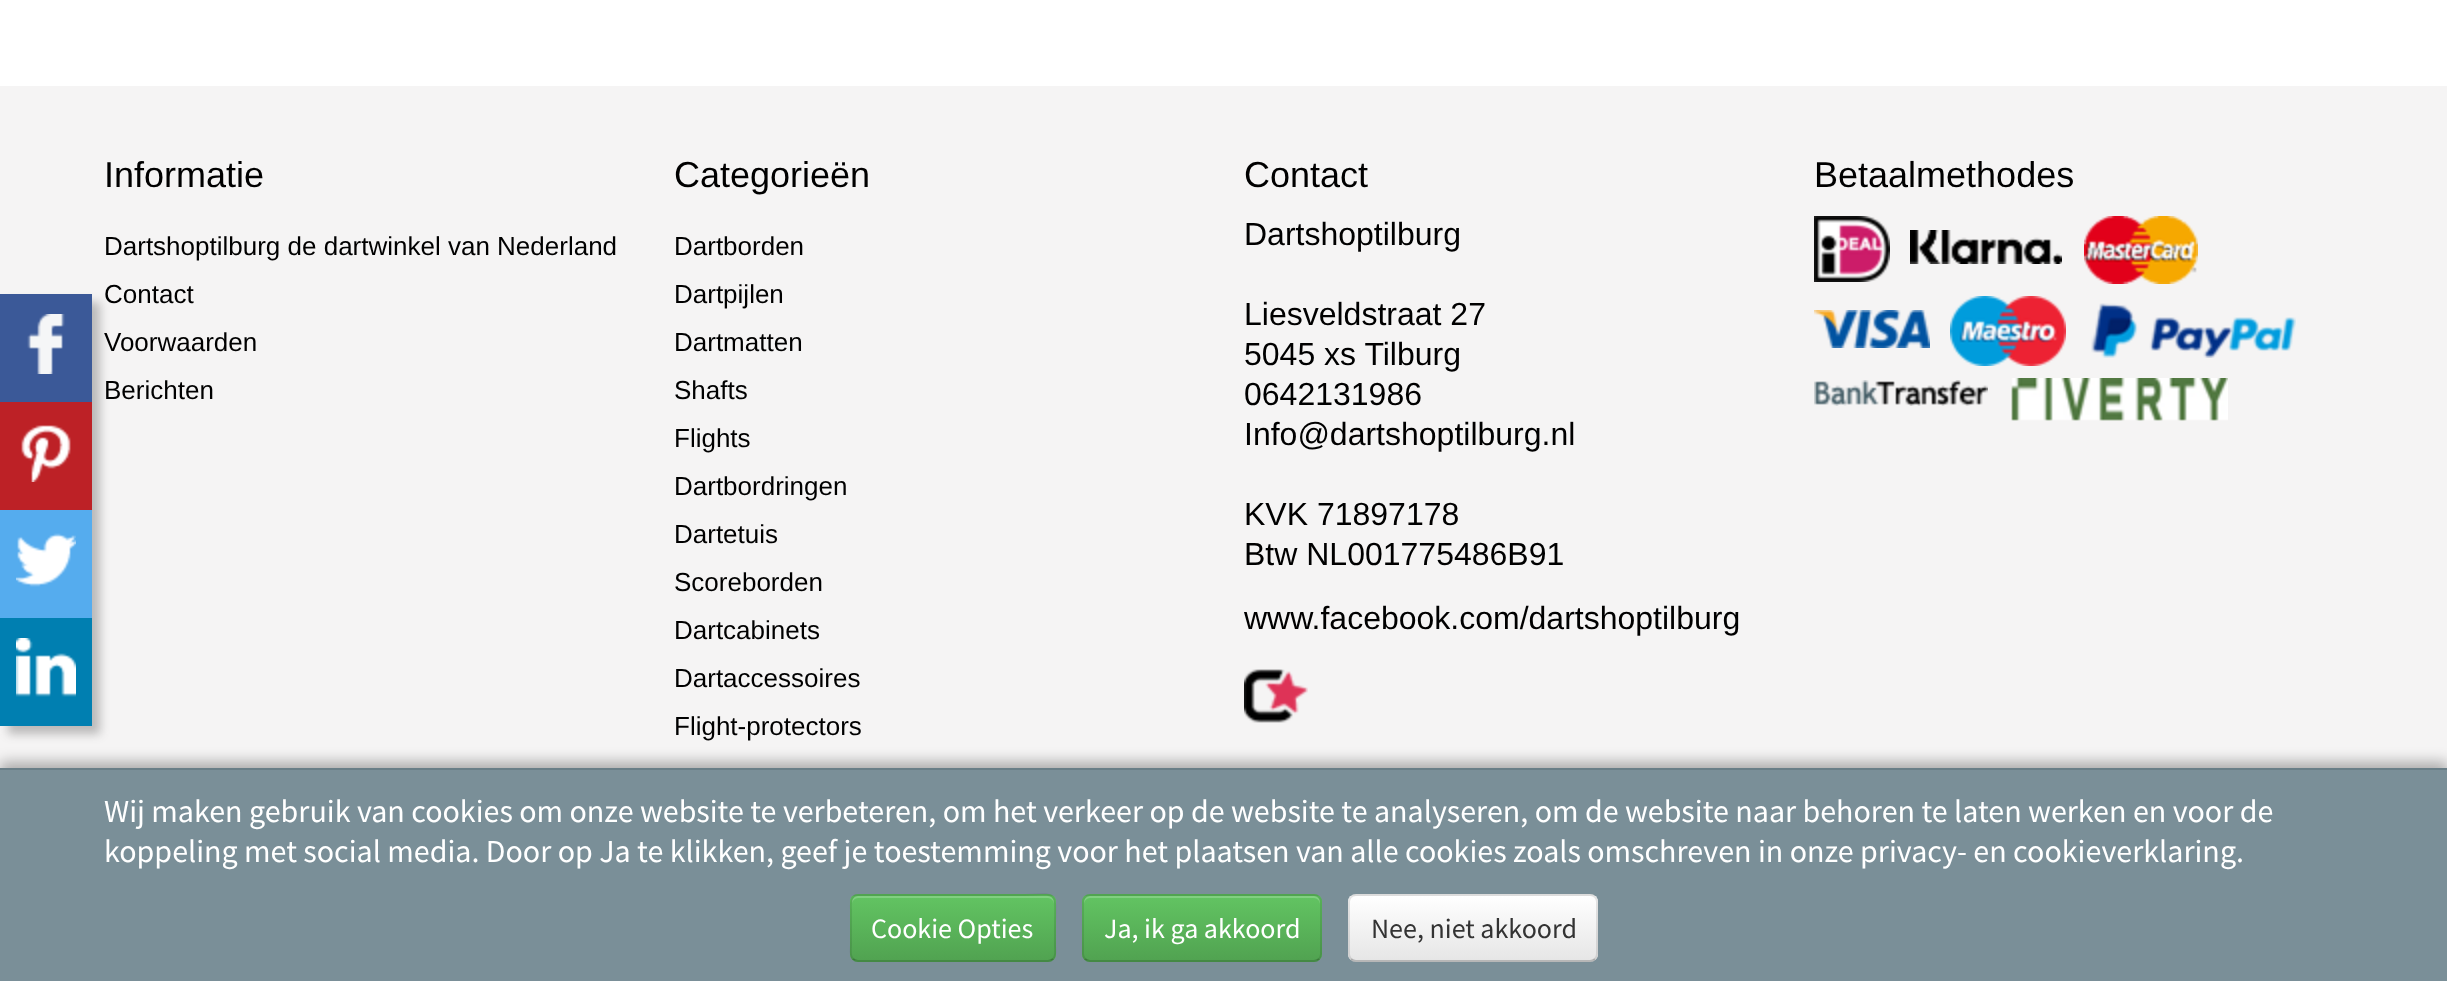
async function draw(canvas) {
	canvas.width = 2447;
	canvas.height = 981;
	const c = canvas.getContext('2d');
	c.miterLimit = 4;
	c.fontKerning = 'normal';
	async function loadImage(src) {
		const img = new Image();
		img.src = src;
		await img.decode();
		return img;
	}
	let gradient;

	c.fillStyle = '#fff';
	c.fillRect(0, 0, 2447, 981);
	c.fillStyle = '#f5f4f4';
	c.fillRect(0, 86, 2447, 682);
	c.fillStyle = '#3232324d';
	c.filter = 'blur(5px)';
	c.beginPath();
	c.rect(8, 302, 92, 432);
	c.fill();
	c.filter = 'none';
	c.fillStyle = '#3b5998';
	c.fillRect(0, 294, 92, 108);
	c.drawImage(await loadImage('img1.png'), 27, 314, 38, 60);
	c.fillStyle = '#bd2126';
	c.fillRect(0, 402, 92, 108);
	c.drawImage(await loadImage('img2.png'), 21, 425, 50, 57);
	c.fillStyle = '#55acee';
	c.fillRect(0, 510, 92, 108);
	c.drawImage(await loadImage('img3.png'), 16, 533, 60, 54);
	c.fillStyle = '#007fb1';
	c.fillRect(0, 618, 92, 108);
	c.drawImage(await loadImage('img4.png'), 16, 638, 60, 59);
	c.font = '36px Liberation Sans';
	c.fillStyle = '#000';
	c.fillText('Informatie', 104, 187);
	c.font = '26px Liberation Sans';
	for (const [text, x, y] of [
		['Dartshoptilburg de dartwinkel van Nederland', 104, 255],
		['Contact', 104, 303],
		['Voorwaarden', 104, 351],
		['Berichten', 104, 399],
	]) {
		c.fillText(text, x, y);
	}
	c.font = '36px Liberation Sans';
	c.fillText('Categorieën', 674, 187);
	c.font = '26px Liberation Sans';
	for (const [text, x, y] of [
		['Dartborden', 674, 255],
		['Dartpijlen', 674, 303],
		['Dartmatten', 674, 351],
		['Shafts', 674, 399],
		['Flights', 674, 447],
		['Dartbordringen', 674, 495],
		['Dartetuis', 674, 543],
		['Scoreborden', 674, 591],
		['Dartcabinets', 674, 639],
		['Dartaccessoires', 674, 687],
		['Flight-protectors', 674, 735],
	]) {
		c.fillText(text, x, y);
	}
	c.font = '36px Liberation Sans';
	c.fillText('Contact', 1244, 187);
	c.font = '32px Liberation Sans';
	for (const [text, x, y] of [
		['Dartshoptilburg', 1244, 245],
		['Liesveldstraat 27', 1244, 325],
		['5045 xs Tilburg', 1244, 365],
		['0642131986', 1244, 405],
		['Info@dartshoptilburg.nl', 1244, 445],
		['KVK 71897178', 1244, 525],
		['Btw NL001775486B91', 1244, 565],
		['www.facebook.com/dartshoptilburg', 1244, 629],
	]) {
		c.fillText(text, x, y);
	}
	c.drawImage(await loadImage('img5.png'), 1244, 669, 64, 54);
	c.font = '36px Liberation Sans';
	c.fillText('Betaalmethodes', 1814, 187);
	c.drawImage(await loadImage('img6.png'), 1814, 216, 76, 66);
	c.drawImage(await loadImage('img7.png'), 1910, 230, 152, 34);
	c.drawImage(await loadImage('img8.png'), 2084, 216, 114, 68);
	c.drawImage(await loadImage('img9.png'), 1814, 310, 116, 38);
	c.drawImage(await loadImage('img10.png'), 1950, 296, 116, 70);
	c.drawImage(await loadImage('img11.png'), 2091, 303, 205, 55);
	c.drawImage(await loadImage('img12.png'), 1814, 380, 174, 26);
	c.drawImage(await loadImage('img13.png'), 2011, 378, 217, 43);
	c.fillStyle = '#0000004d';
	c.filter = 'blur(7px)';
	c.beginPath();
	c.rect(0, 762, 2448, 214);
	c.fill();
	c.filter = 'none';
	c.fillStyle = '#7a8f98';
	c.fillRect(0, 770, 2447, 211);
	c.fillStyle = '#697e87';
	c.fillRect(0, 768, 2447, 2);
	c.font = '32px Source Sans Pro';
	c.fillStyle = '#fff';
	c.fillText('Wij maken gebruik van cookies om onze website te verbeteren, om het verkeer op de website te analyseren, om de website naar behoren te laten werken en voor de', 104, 822);
	c.fillText('koppeling met social media. Door op Ja te klikken, geef je toestemming voor het plaatsen van alle cookies zoals omschreven in onze privacy- en cookieverklaring.', 104, 862);
	c.fillStyle = '#5bb75b';
	c.beginPath();
	c.roundRect(850, 894, 206, 68, 8);
	c.fill();
	c.save();
	c.beginPath();
	c.roundRect(850, 894, 206, 68, 8);
	c.clip();
	gradient = c.createLinearGradient(953, 896, 953, 960);
	gradient.addColorStop(0, '#62c462');
	gradient.addColorStop(1, '#51a351');
	c.fillStyle = gradient;
	c.fillRect(850, 896, 206, 64);
	c.restore();
	c.fillStyle = '#ffffff33';
	c.beginPath();
	c.moveTo(858, 898);
	c.lineTo(1048, 898);
	c.bezierCurveTo(1051, 898, 1054, 901, 1054, 904);
	c.lineTo(1054, 902);
	c.bezierCurveTo(1054, 899, 1051, 896, 1048, 896);
	c.lineTo(858, 896);
	c.bezierCurveTo(855, 896, 852, 899, 852, 902);
	c.lineTo(852, 904);
	c.bezierCurveTo(852, 901, 855, 898, 858, 898);
	c.closePath();
	c.fill();
	c.beginPath();
	c.moveTo(1053, 959);
	c.bezierCurveTo(1051.5, 960.5, 1050, 961, 1048, 961);
	c.lineTo(858, 961);
	c.bezierCurveTo(856, 961, 854.5, 960.5, 853, 959);
	c.strokeStyle = '#00000040';
	c.lineWidth = 2;
	c.stroke();
	c.beginPath();
	c.moveTo(853, 959);
	c.bezierCurveTo(849.5, 955.5, 851, 949, 851, 945.5);
	c.lineTo(851, 910.5);
	c.bezierCurveTo(851, 905.5, 849.5, 895, 858, 895);
	c.lineTo(1016.5, 895);
	c.bezierCurveTo(1060.5, 895, 1055, 887.5, 1055, 928);
	c.lineTo(1055, 945.5);
	c.bezierCurveTo(1055, 949, 1056.5, 955.5, 1053, 959);
	c.strokeStyle = '#0000001a';
	c.stroke();
	c.font = '28px Source Sans Pro';
	c.fillStyle = '#fff';
	c.fillText('Cookie Opties', 871, 938);
	c.fillStyle = '#5bb75b';
	c.beginPath();
	c.roundRect(1082, 894, 240, 68, 8);
	c.fill();
	c.save();
	c.beginPath();
	c.roundRect(1082, 894, 240, 68, 8);
	c.clip();
	gradient = c.createLinearGradient(1202, 896, 1202, 960);
	gradient.addColorStop(0, '#62c462');
	gradient.addColorStop(1, '#51a351');
	c.fillStyle = gradient;
	c.fillRect(1082, 896, 240, 64);
	c.restore();
	c.fillStyle = '#ffffff33';
	c.beginPath();
	c.moveTo(1090, 898);
	c.lineTo(1314, 898);
	c.bezierCurveTo(1317, 898, 1320, 901, 1320, 904);
	c.lineTo(1320, 902);
	c.bezierCurveTo(1320, 899, 1317, 896, 1314, 896);
	c.lineTo(1090, 896);
	c.bezierCurveTo(1087, 896, 1084, 899, 1084, 902);
	c.lineTo(1084, 904);
	c.bezierCurveTo(1084, 901, 1087, 898, 1090, 898);
	c.closePath();
	c.fill();
	c.beginPath();
	c.moveTo(1319, 959);
	c.bezierCurveTo(1317.5, 960.5, 1316, 961, 1314, 961);
	c.lineTo(1090, 961);
	c.bezierCurveTo(1088, 961, 1086.5, 960.5, 1085, 959);
	c.strokeStyle = '#00000040';
	c.stroke();
	c.beginPath();
	c.moveTo(1085, 959);
	c.bezierCurveTo(1083.5, 957.5, 1083, 956, 1083, 954);
	c.lineTo(1083, 902);
	c.bezierCurveTo(1083, 900, 1083.5, 898.5, 1085, 897);
	c.bezierCurveTo(1086.5, 895.5, 1088, 895, 1090, 895);
	c.lineTo(1314, 895);
	c.bezierCurveTo(1316, 895, 1317.5, 895.5, 1319, 897);
	c.bezierCurveTo(1320.5, 898.5, 1321, 900, 1321, 902);
	c.lineTo(1321, 954);
	c.bezierCurveTo(1321, 956, 1320.5, 957.5, 1319, 959);
	c.strokeStyle = '#0000001a';
	c.stroke();
	c.fillStyle = '#fff';
	c.fillText('Ja, ik ga akkoord', 1104, 938);
	c.fillStyle = '#f5f5f5';
	c.beginPath();
	c.roundRect(1348, 894, 250, 68, 8);
	c.fill();
	c.save();
	c.beginPath();
	c.roundRect(1348, 894, 250, 68, 8);
	c.clip();
	gradient = c.createLinearGradient(1473, 896, 1473, 960);
	gradient.addColorStop(0, '#fff');
	gradient.addColorStop(1, '#e6e6e6');
	c.fillStyle = gradient;
	c.fillRect(1348, 896, 250, 64);
	c.restore();
	c.beginPath();
	c.moveTo(1595, 959);
	c.bezierCurveTo(1593.5, 960.5, 1592, 961, 1590, 961);
	c.lineTo(1356, 961);
	c.bezierCurveTo(1354, 961, 1352.5, 960.5, 1351, 959);
	c.strokeStyle = '#00000040';
	c.stroke();
	c.beginPath();
	c.moveTo(1351, 959);
	c.bezierCurveTo(1349.5, 957.5, 1349, 956, 1349, 954);
	c.lineTo(1349, 902);
	c.bezierCurveTo(1349, 900, 1349.5, 898.5, 1351, 897);
	c.bezierCurveTo(1352.5, 895.5, 1354, 895, 1356, 895);
	c.lineTo(1590, 895);
	c.bezierCurveTo(1592, 895, 1593.5, 895.5, 1595, 897);
	c.bezierCurveTo(1596.5, 898.5, 1597, 900, 1597, 902);
	c.lineTo(1597, 954);
	c.bezierCurveTo(1597, 956, 1596.5, 957.5, 1595, 959);
	c.strokeStyle = '#0000001a';
	c.stroke();
	c.fillStyle = '#333';
	c.fillText('Nee, niet akkoord', 1371, 938);
}

draw(document.querySelector('canvas'));
